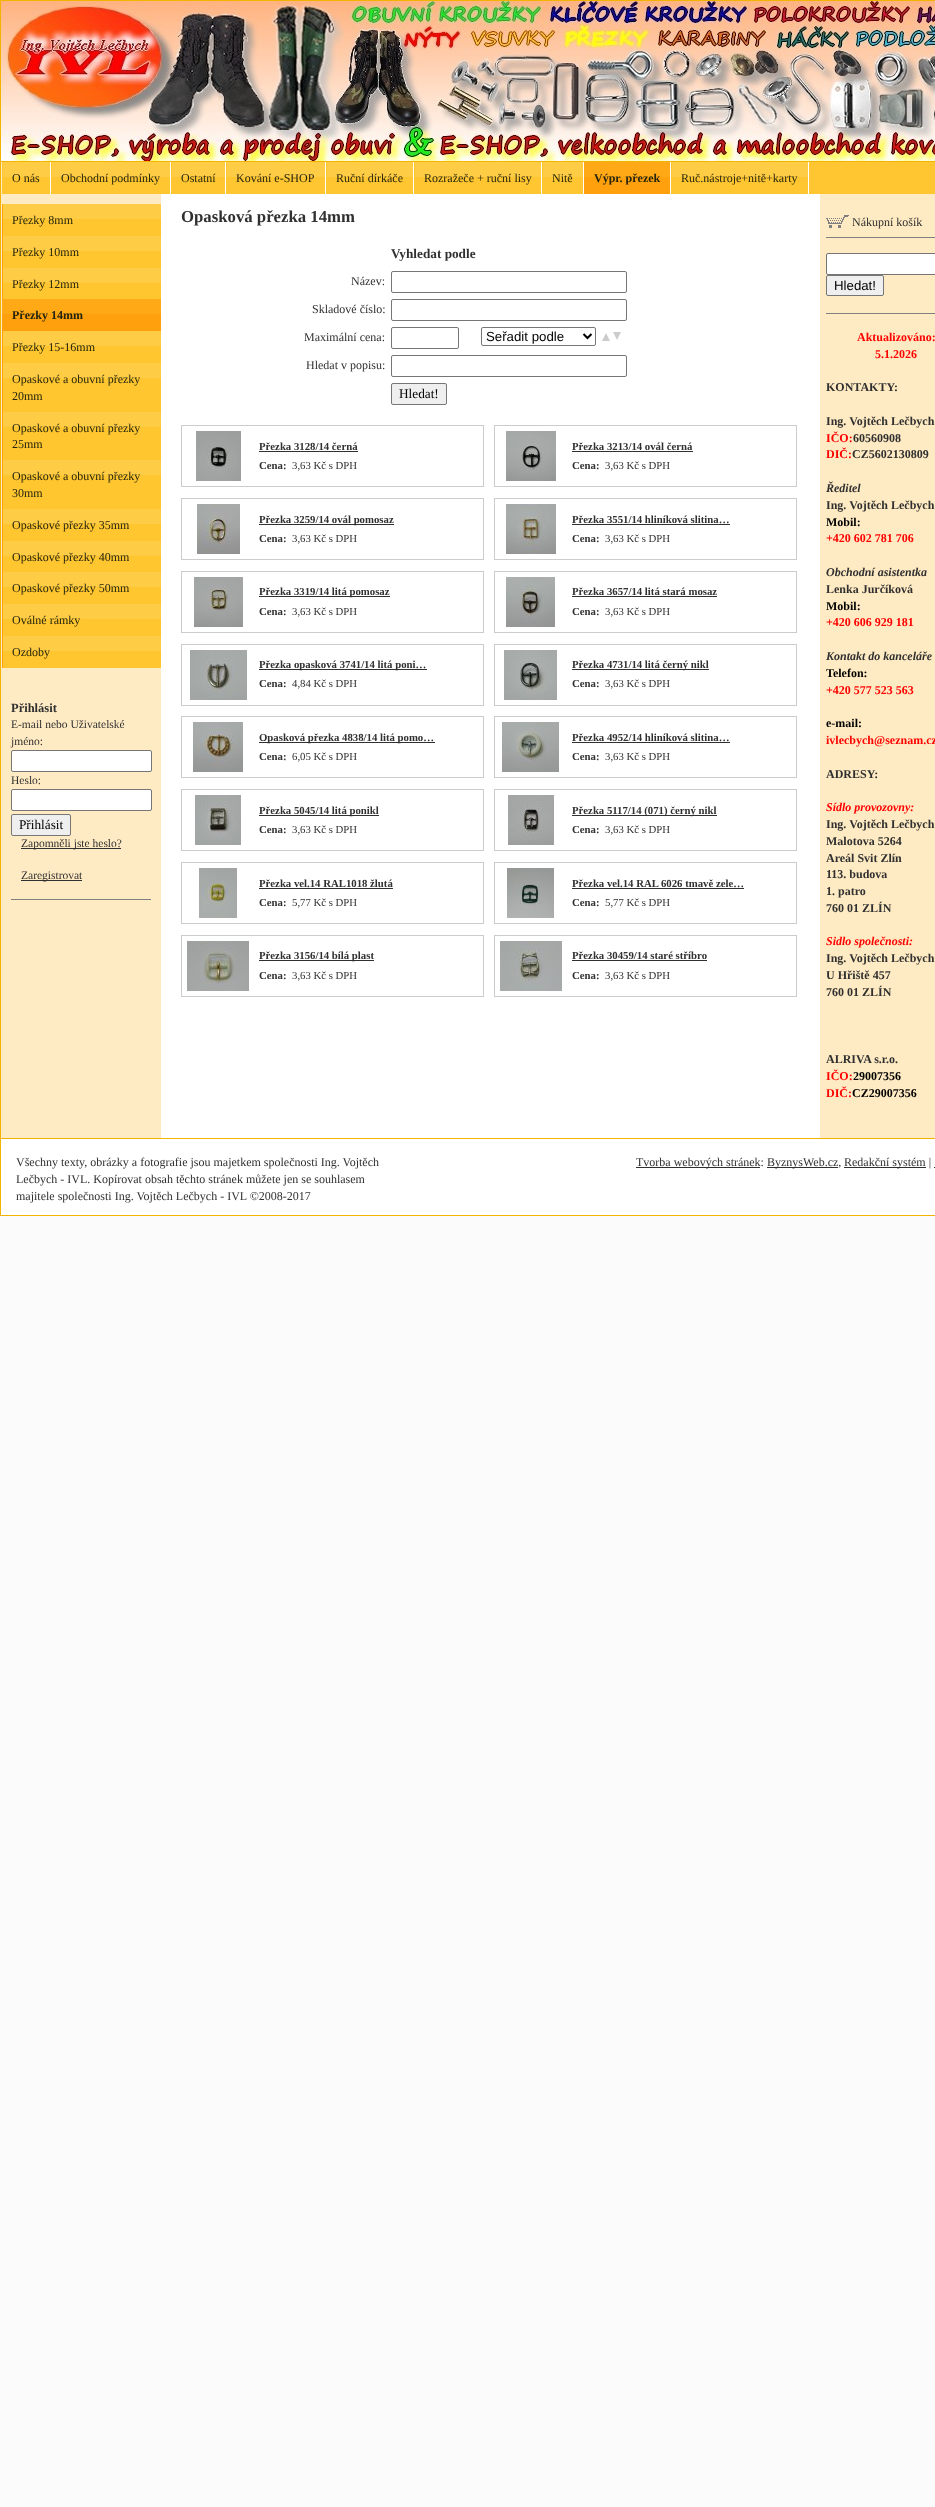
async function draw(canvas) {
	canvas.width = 935;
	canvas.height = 2507;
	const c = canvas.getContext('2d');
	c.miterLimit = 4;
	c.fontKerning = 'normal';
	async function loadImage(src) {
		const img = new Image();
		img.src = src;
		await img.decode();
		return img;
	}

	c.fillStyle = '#fbfbfb';
	c.fillRect(0, 0, 935, 2507);
	c.strokeStyle = '#f2b401';
	c.strokeRect(0.5, 0.5, 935, 1215);
	c.drawImage(await loadImage('img1.png'), 1, 1, 934, 160);
	c.fillStyle = '#f2b401';
	c.fillRect(1, 161, 934, 1);
	c.drawImage(await loadImage('img2.png'), 1, 162, 934, 976);
	for (const [x, y, w, h, color] of [
		[2, 162, 933, 32, '#ffc631'],
		[50, 162, 1, 32, '#fff'],
		[3, 162, 47, 15, '#ffcc45'],
	]) {
		c.fillStyle = color;
		c.fillRect(x, y, w, h);
	}
	c.font = '12px Liberation Serif';
	c.fillStyle = '#25250f';
	c.fillText('O nás', 12, 182);
	c.fillStyle = '#fff';
	c.fillRect(170, 162, 1, 32);
	c.fillStyle = '#ffcc45';
	c.fillRect(52, 162, 118, 15);
	c.fillStyle = '#25250f';
	c.fillText('Obchodní podmínky', 61, 182);
	c.fillStyle = '#fff';
	c.fillRect(225, 162, 1, 32);
	c.fillStyle = '#ffcc45';
	c.fillRect(172, 162, 53, 15);
	c.fillStyle = '#25250f';
	c.fillText('Ostatní', 181, 182);
	c.fillStyle = '#fff';
	c.fillRect(325, 162, 1, 32);
	c.fillStyle = '#ffcc45';
	c.fillRect(227, 162, 98, 15);
	c.fillStyle = '#25250f';
	c.fillText('Kování e-SHOP', 236, 182);
	c.fillStyle = '#fff';
	c.fillRect(413, 162, 1, 32);
	c.fillStyle = '#ffcc45';
	c.fillRect(327, 162, 86, 15);
	c.fillStyle = '#25250f';
	c.fillText('Ruční dírkáče', 336, 182);
	c.fillStyle = '#fff';
	c.fillRect(541, 162, 1, 32);
	c.fillStyle = '#ffcc45';
	c.fillRect(415, 162, 126, 15);
	c.fillStyle = '#25250f';
	c.fillText('Rozražeče + ruční lisy', 424, 182);
	c.fillStyle = '#fff';
	c.fillRect(583, 162, 1, 32);
	c.fillStyle = '#ffcc45';
	c.fillRect(543, 162, 40, 15);
	c.fillStyle = '#25250f';
	c.fillText('Nitě', 552, 182);
	c.fillStyle = '#fff';
	c.fillRect(670, 162, 1, 32);
	c.drawImage(await loadImage('img3.png'), 584, 162, 86, 32);
	c.font = 'bold 12px Liberation Serif';
	c.fillStyle = '#25250f';
	c.fillText('Výpr. přezek', 594, 182);
	c.fillStyle = '#fff';
	c.fillRect(808, 162, 1, 32);
	c.fillStyle = '#ffcc45';
	c.fillRect(672, 162, 136, 15);
	c.font = '12px Liberation Serif';
	c.fillStyle = '#25250f';
	c.fillText('Ruč.nástroje+nitě+karty', 681, 182);
	c.fillStyle = '#ffa508';
	c.fillRect(2, 204, 1, 464);
	c.drawImage(await loadImage('img4.png'), 3, 204, 158, 32);
	c.fillStyle = '#25250f';
	c.fillText('Přezky 8mm', 12, 224);
	c.drawImage(await loadImage('img4.png'), 3, 236, 158, 32);
	c.fillText('Přezky 10mm', 12, 256);
	c.drawImage(await loadImage('img5.png'), 3, 268, 158, 31);
	c.fillText('Přezky 12mm', 12, 288);
	c.drawImage(await loadImage('img6.png'), 2, 299, 159, 32);
	c.font = 'bold 12px Liberation Serif';
	c.fillText('Přezky 14mm', 12, 319);
	c.drawImage(await loadImage('img4.png'), 3, 331, 158, 32);
	c.font = '12px Liberation Serif';
	c.fillText('Přezky 15-16mm', 12, 351);
	c.drawImage(await loadImage('img7.png'), 3, 363, 158, 49);
	c.fillText('Opaskové a obuvní přezky', 12, 383);
	c.fillText('20mm', 12, 400);
	c.drawImage(await loadImage('img8.png'), 3, 412, 158, 48);
	c.fillText('Opaskové a obuvní přezky', 12, 432);
	c.fillText('25mm', 12, 448);
	c.drawImage(await loadImage('img7.png'), 3, 460, 158, 49);
	c.fillText('Opaskové a obuvní přezky', 12, 480);
	c.fillText('30mm', 12, 497);
	c.drawImage(await loadImage('img4.png'), 3, 509, 158, 32);
	c.fillText('Opaskové přezky 35mm', 12, 529);
	c.drawImage(await loadImage('img5.png'), 3, 541, 158, 31);
	c.fillText('Opaskové přezky 40mm', 12, 561);
	c.drawImage(await loadImage('img4.png'), 3, 572, 158, 32);
	c.fillText('Opaskové přezky 50mm', 12, 592);
	c.drawImage(await loadImage('img4.png'), 3, 604, 158, 32);
	c.fillText('Oválné rámky', 12, 624);
	c.drawImage(await loadImage('img4.png'), 3, 636, 158, 32);
	c.fillText('Ozdoby', 12, 656);
	c.fillStyle = '#808080';
	c.fillRect(11, 899, 140, 1);
	c.font = 'bold 12.5px Liberation Serif';
	c.fillStyle = '#303030';
	c.fillText('Přihlásit', 11, 712);
	c.font = '11.5px Liberation Serif';
	c.fillText('E-mail nebo Uživatelské', 11, 728);
	c.fillText('jméno:', 11, 745);
	c.fillStyle = '#fff';
	c.beginPath();
	c.roundRect(11.5, 750.5, 140, 21, 1.5);
	c.fill();
	c.strokeStyle = '#767676';
	c.stroke();
	c.fillStyle = '#303030';
	c.fillText('Heslo:', 11, 784);
	c.fillStyle = '#fff';
	c.beginPath();
	c.roundRect(11.5, 789.5, 140, 21, 1.5);
	c.fill();
	c.stroke();
	c.fillStyle = '#efefef';
	c.beginPath();
	c.roundRect(11.5, 814.5, 59, 21, 1.5);
	c.fill();
	c.stroke();
	c.font = '13.25px Liberation Serif';
	c.fillStyle = '#000';
	c.fillText('Přihlásit', 19, 829);
	c.fillStyle = '#303030';
	c.fillRect(21, 848, 100, 1);
	c.font = '11.5px Liberation Serif';
	c.fillText('Zapomněli jste heslo?', 21, 847);
	c.fillRect(21, 880, 61, 1);
	c.fillText('Zaregistrovat', 21, 879);
	c.font = 'bold 16.75px Liberation Serif';
	c.fillText('Opasková přezka 14mm', 181, 222);
	c.font = 'bold 13.25px Liberation Serif';
	c.fillText('Vyhledat podle', 391, 258);
	c.font = '12px Liberation Serif';
	c.fillText('Název:', 351, 285);
	c.beginPath();
	c.roundRect(391.5, 271.5, 235, 21, 1.5);
	c.stroke();
	c.fillText('Skladové číslo:', 312, 313);
	c.beginPath();
	c.roundRect(391.5, 299.5, 235, 21, 1.5);
	c.stroke();
	c.fillText('Maximální cena:', 304, 341);
	c.beginPath();
	c.roundRect(391.5, 327.5, 67, 21, 1.5);
	c.stroke();
	c.beginPath();
	c.roundRect(481.5, 327.5, 114, 18, 1.5);
	c.stroke();
	c.beginPath();
	c.moveTo(583.5, 334);
	c.lineTo(587.5, 338);
	c.lineTo(591.5, 334);
	c.strokeStyle = '#000';
	c.lineWidth = 2;
	c.stroke();
	c.font = '13.25px Liberation Sans';
	c.fillStyle = '#000';
	c.fillText('Seřadit podle', 486, 341);
	c.drawImage(await loadImage('img9.png'), 602, 333, 8, 8);
	c.drawImage(await loadImage('img10.png'), 613, 332, 8, 8);
	c.font = '12px Liberation Serif';
	c.fillStyle = '#303030';
	c.fillText('Hledat v popisu:', 306, 369);
	c.beginPath();
	c.roundRect(391.5, 355.5, 235, 21, 1.5);
	c.strokeStyle = '#767676';
	c.lineWidth = 1;
	c.stroke();
	c.fillStyle = '#efefef';
	c.beginPath();
	c.roundRect(391.5, 383.5, 55, 21, 1.5);
	c.fill();
	c.stroke();
	c.font = '13.25px Liberation Serif';
	c.fillStyle = '#000';
	c.fillText('Hledat!', 399, 398);
	for (const [x, y, w, h, color] of [
		[181, 425, 303, 1, '#ccc'],
		[483, 425, 1, 62, '#ccc'],
		[181, 486, 303, 1, '#ccc'],
		[181, 425, 1, 62, '#ccc'],
	]) {
		c.fillStyle = color;
		c.fillRect(x, y, w, h);
	}
	c.drawImage(await loadImage('img11.png'), 196, 431, 45, 50);
	c.font = 'bold 10.75px Liberation Serif';
	c.fillStyle = '#303030';
	c.fillText('Přezka 3128/14 černá', 259, 450);
	c.fillRect(259, 451, 99, 1);
	c.fillText('Cena:', 259, 469);
	c.font = '10.75px Liberation Serif';
	c.fillText('3,63 Kč s DPH', 292, 469);
	for (const [x, y, w, h, color] of [
		[494, 425, 303, 1, '#ccc'],
		[796, 425, 1, 62, '#ccc'],
		[494, 486, 303, 1, '#ccc'],
		[494, 425, 1, 62, '#ccc'],
	]) {
		c.fillStyle = color;
		c.fillRect(x, y, w, h);
	}
	c.drawImage(await loadImage('img12.png'), 506, 431, 50, 50);
	c.font = 'bold 10.75px Liberation Serif';
	c.fillStyle = '#303030';
	c.fillText('Přezka 3213/14 ovál černá', 572, 450);
	c.fillRect(572, 451, 121, 1);
	c.fillText('Cena:', 572, 469);
	c.font = '10.75px Liberation Serif';
	c.fillText('3,63 Kč s DPH', 605, 469);
	for (const [x, y, w, h, color] of [
		[181, 498, 303, 1, '#ccc'],
		[483, 498, 1, 62, '#ccc'],
		[181, 559, 303, 1, '#ccc'],
		[181, 498, 1, 62, '#ccc'],
	]) {
		c.fillStyle = color;
		c.fillRect(x, y, w, h);
	}
	c.drawImage(await loadImage('img13.png'), 197, 504, 43, 50);
	c.fillStyle = '#303030';
	c.fillRect(259, 524, 135, 1);
	c.font = 'bold 10.75px Liberation Serif';
	c.fillText('Přezka 3259/14 ovál pomosaz', 259, 523);
	c.fillText('Cena:', 259, 542);
	c.font = '10.75px Liberation Serif';
	c.fillText('3,63 Kč s DPH', 292, 542);
	for (const [x, y, w, h, color] of [
		[494, 498, 303, 1, '#ccc'],
		[796, 498, 1, 62, '#ccc'],
		[494, 559, 303, 1, '#ccc'],
		[494, 498, 1, 62, '#ccc'],
	]) {
		c.fillStyle = color;
		c.fillRect(x, y, w, h);
	}
	c.drawImage(await loadImage('img14.png'), 506, 504, 50, 50);
	c.font = 'bold 10.75px Liberation Serif';
	c.fillStyle = '#303030';
	c.fillText('Přezka 3551/14 hliníková slitina…', 572, 523);
	c.fillRect(572, 524, 158, 1);
	c.fillText('Cena:', 572, 542);
	c.font = '10.75px Liberation Serif';
	c.fillText('3,63 Kč s DPH', 605, 542);
	for (const [x, y, w, h, color] of [
		[181, 571, 303, 1, '#ccc'],
		[483, 571, 1, 62, '#ccc'],
		[181, 632, 303, 1, '#ccc'],
		[181, 571, 1, 62, '#ccc'],
	]) {
		c.fillStyle = color;
		c.fillRect(x, y, w, h);
	}
	c.drawImage(await loadImage('img15.png'), 194, 577, 49, 50);
	c.fillStyle = '#303030';
	c.fillRect(259, 596, 131, 1);
	c.font = 'bold 10.75px Liberation Serif';
	c.fillText('Přezka 3319/14 litá pomosaz', 259, 595);
	c.fillText('Cena:', 259, 615);
	c.font = '10.75px Liberation Serif';
	c.fillText('3,63 Kč s DPH', 292, 615);
	for (const [x, y, w, h, color] of [
		[494, 571, 303, 1, '#ccc'],
		[796, 571, 1, 62, '#ccc'],
		[494, 632, 303, 1, '#ccc'],
		[494, 571, 1, 62, '#ccc'],
	]) {
		c.fillStyle = color;
		c.fillRect(x, y, w, h);
	}
	c.drawImage(await loadImage('img16.png'), 506, 577, 49, 50);
	c.font = 'bold 10.75px Liberation Serif';
	c.fillStyle = '#303030';
	c.fillText('Přezka 3657/14 litá stará mosaz', 572, 595);
	c.fillRect(572, 596, 145, 1);
	c.fillText('Cena:', 572, 615);
	c.font = '10.75px Liberation Serif';
	c.fillText('3,63 Kč s DPH', 605, 615);
	for (const [x, y, w, h, color] of [
		[181, 644, 303, 1, '#ccc'],
		[483, 644, 1, 62, '#ccc'],
		[181, 705, 303, 1, '#ccc'],
		[181, 644, 1, 62, '#ccc'],
	]) {
		c.fillStyle = color;
		c.fillRect(x, y, w, h);
	}
	c.drawImage(await loadImage('img17.png'), 190, 650, 57, 50);
	c.fillStyle = '#303030';
	c.fillRect(259, 669, 168, 1);
	c.font = 'bold 10.75px Liberation Serif';
	c.fillText('Přezka opasková 3741/14 litá poni…', 259, 668);
	c.fillText('Cena:', 259, 687);
	c.font = '10.75px Liberation Serif';
	c.fillText('4,84 Kč s DPH', 292, 687);
	for (const [x, y, w, h, color] of [
		[494, 644, 303, 1, '#ccc'],
		[796, 644, 1, 62, '#ccc'],
		[494, 705, 303, 1, '#ccc'],
		[494, 644, 1, 62, '#ccc'],
	]) {
		c.fillStyle = color;
		c.fillRect(x, y, w, h);
	}
	c.drawImage(await loadImage('img18.png'), 504, 650, 53, 50);
	c.fillStyle = '#303030';
	c.fillRect(572, 669, 137, 1);
	c.font = 'bold 10.75px Liberation Serif';
	c.fillText('Přezka 4731/14 litá černý nikl', 572, 668);
	c.fillText('Cena:', 572, 687);
	c.font = '10.75px Liberation Serif';
	c.fillText('3,63 Kč s DPH', 605, 687);
	for (const [x, y, w, h, color] of [
		[181, 716, 303, 1, '#ccc'],
		[483, 716, 1, 62, '#ccc'],
		[181, 777, 303, 1, '#ccc'],
		[181, 716, 1, 62, '#ccc'],
	]) {
		c.fillStyle = color;
		c.fillRect(x, y, w, h);
	}
	c.drawImage(await loadImage('img19.png'), 193, 722, 50, 50);
	c.fillStyle = '#303030';
	c.fillRect(259, 742, 176, 1);
	c.font = 'bold 10.75px Liberation Serif';
	c.fillText('Opasková přezka 4838/14 litá pomo…', 259, 741);
	c.fillText('Cena:', 259, 760);
	c.font = '10.75px Liberation Serif';
	c.fillText('6,05 Kč s DPH', 292, 760);
	for (const [x, y, w, h, color] of [
		[494, 716, 303, 1, '#ccc'],
		[796, 716, 1, 62, '#ccc'],
		[494, 777, 303, 1, '#ccc'],
		[494, 716, 1, 62, '#ccc'],
	]) {
		c.fillStyle = color;
		c.fillRect(x, y, w, h);
	}
	c.drawImage(await loadImage('img20.png'), 502, 722, 57, 50);
	c.font = 'bold 10.75px Liberation Serif';
	c.fillStyle = '#303030';
	c.fillText('Přezka 4952/14 hliníková slitina…', 572, 741);
	c.fillRect(572, 742, 158, 1);
	c.fillText('Cena:', 572, 760);
	c.font = '10.75px Liberation Serif';
	c.fillText('3,63 Kč s DPH', 605, 760);
	for (const [x, y, w, h, color] of [
		[181, 789, 303, 1, '#ccc'],
		[483, 789, 1, 62, '#ccc'],
		[181, 850, 303, 1, '#ccc'],
		[181, 789, 1, 62, '#ccc'],
	]) {
		c.fillStyle = color;
		c.fillRect(x, y, w, h);
	}
	c.drawImage(await loadImage('img21.png'), 195, 795, 46, 50);
	c.fillStyle = '#303030';
	c.fillRect(259, 815, 120, 1);
	c.font = 'bold 10.75px Liberation Serif';
	c.fillText('Přezka 5045/14 litá ponikl', 259, 814);
	c.fillText('Cena:', 259, 833);
	c.font = '10.75px Liberation Serif';
	c.fillText('3,63 Kč s DPH', 292, 833);
	for (const [x, y, w, h, color] of [
		[494, 789, 303, 1, '#ccc'],
		[796, 789, 1, 62, '#ccc'],
		[494, 850, 303, 1, '#ccc'],
		[494, 789, 1, 62, '#ccc'],
	]) {
		c.fillStyle = color;
		c.fillRect(x, y, w, h);
	}
	c.drawImage(await loadImage('img22.png'), 508, 795, 46, 50);
	c.fillStyle = '#303030';
	c.fillRect(572, 815, 145, 1);
	c.font = 'bold 10.75px Liberation Serif';
	c.fillText('Přezka 5117/14 (071) černý nikl', 572, 814);
	c.fillText('Cena:', 572, 833);
	c.font = '10.75px Liberation Serif';
	c.fillText('3,63 Kč s DPH', 605, 833);
	for (const [x, y, w, h, color] of [
		[181, 862, 303, 1, '#ccc'],
		[483, 862, 1, 62, '#ccc'],
		[181, 923, 303, 1, '#ccc'],
		[181, 862, 1, 62, '#ccc'],
	]) {
		c.fillStyle = color;
		c.fillRect(x, y, w, h);
	}
	c.drawImage(await loadImage('img23.png'), 199, 868, 38, 50);
	c.font = 'bold 10.75px Liberation Serif';
	c.fillStyle = '#303030';
	c.fillText('Přezka vel.14 RAL1018 žlutá', 259, 887);
	c.fillRect(259, 888, 134, 1);
	c.fillText('Cena:', 259, 906);
	c.font = '10.75px Liberation Serif';
	c.fillText('5,77 Kč s DPH', 292, 906);
	for (const [x, y, w, h, color] of [
		[494, 862, 303, 1, '#ccc'],
		[796, 862, 1, 62, '#ccc'],
		[494, 923, 303, 1, '#ccc'],
		[494, 862, 1, 62, '#ccc'],
	]) {
		c.fillStyle = color;
		c.fillRect(x, y, w, h);
	}
	c.drawImage(await loadImage('img24.png'), 507, 868, 47, 50);
	c.font = 'bold 10.75px Liberation Serif';
	c.fillStyle = '#303030';
	c.fillText('Přezka vel.14 RAL 6026 tmavě zele…', 572, 887);
	c.fillRect(572, 888, 172, 1);
	c.fillText('Cena:', 572, 906);
	c.font = '10.75px Liberation Serif';
	c.fillText('5,77 Kč s DPH', 605, 906);
	for (const [x, y, w, h, color] of [
		[181, 935, 303, 1, '#ccc'],
		[483, 935, 1, 62, '#ccc'],
		[181, 996, 303, 1, '#ccc'],
		[181, 935, 1, 62, '#ccc'],
	]) {
		c.fillStyle = color;
		c.fillRect(x, y, w, h);
	}
	c.drawImage(await loadImage('img25.png'), 187, 941, 62, 50);
	c.fillStyle = '#303030';
	c.fillRect(259, 960, 115, 1);
	c.font = 'bold 10.75px Liberation Serif';
	c.fillText('Přezka 3156/14 bílá plast', 259, 959);
	c.fillText('Cena:', 259, 979);
	c.font = '10.75px Liberation Serif';
	c.fillText('3,63 Kč s DPH', 292, 979);
	for (const [x, y, w, h, color] of [
		[494, 935, 303, 1, '#ccc'],
		[796, 935, 1, 62, '#ccc'],
		[494, 996, 303, 1, '#ccc'],
		[494, 935, 1, 62, '#ccc'],
	]) {
		c.fillStyle = color;
		c.fillRect(x, y, w, h);
	}
	c.drawImage(await loadImage('img26.png'), 500, 941, 62, 50);
	c.font = 'bold 10.75px Liberation Serif';
	c.fillStyle = '#303030';
	c.fillText('Přezka 30459/14 staré stříbro', 572, 959);
	c.fillRect(572, 960, 135, 1);
	c.fillText('Cena:', 572, 979);
	c.font = '10.75px Liberation Serif';
	c.fillText('3,63 Kč s DPH', 605, 979);
	c.fillStyle = '#808080';
	c.fillRect(826, 237, 109, 1);
	c.drawImage(await loadImage('img27.png'), 826, 215, 23, 13);
	c.font = '12px Liberation Serif';
	c.fillStyle = '#303030';
	c.fillText('Nákupní košík', 852, 226);
	c.fillStyle = '#808080';
	c.fillRect(826, 313, 109, 1);
	c.fillStyle = '#fff';
	c.beginPath();
	c.roundRect(826.5, 253.5, 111, 21, 1.5);
	c.fill();
	c.stroke();
	c.fillStyle = '#efefef';
	c.beginPath();
	c.roundRect(826.5, 275.5, 57, 20, 1.5);
	c.fill();
	c.stroke();
	c.font = '13.25px Liberation Sans';
	c.fillStyle = '#000';
	c.fillText('Hledat!', 834, 290);
	c.font = 'bold 12px Liberation Serif';
	c.fillStyle = '#f00';
	c.fillText('Aktualizováno:', 857, 341);
	c.fillText('5.1.2026', 875, 358);
	c.fillStyle = '#303030';
	c.fillText('KONTAKTY:', 826, 391);
	c.fillText('Ing. Vojtěch Lečbych', 826, 425);
	c.fillStyle = '#f00';
	c.fillText('IČO:', 826, 442);
	c.fillStyle = '#303030';
	c.fillText('60560908', 853, 442);
	c.fillStyle = '#f00';
	c.fillText('DIČ:', 826, 458);
	c.fillStyle = '#303030';
	c.fillText('CZ5602130809', 852, 458);
	c.font = 'italic bold 12px Liberation Serif';
	c.fillText('Ředitel', 826, 492);
	c.font = 'bold 12px Liberation Serif';
	c.fillText('Ing. Vojtěch Lečbych', 826, 509);
	c.fillStyle = '#000';
	c.fillText('Mobil:', 826, 526);
	c.fillStyle = '#f00';
	c.fillText('+420 602 781 706', 826, 542);
	c.font = 'italic bold 12px Liberation Serif';
	c.fillStyle = '#303030';
	c.fillText('Obchodní asistentka', 826, 576);
	c.font = 'bold 12px Liberation Serif';
	c.fillText('Lenka Jurčíková', 826, 593);
	c.fillStyle = '#000';
	c.fillText('Mobil:', 826, 610);
	c.fillStyle = '#f00';
	c.fillText('+420 606 929 181', 826, 626);
	c.font = 'italic bold 12px Liberation Serif';
	c.fillStyle = '#303030';
	c.fillText('Kontakt do kanceláře', 826, 660);
	c.font = 'bold 12px Liberation Serif';
	c.fillStyle = '#000';
	c.fillText('Telefon:', 826, 677);
	c.fillStyle = '#f00';
	c.fillText('+420 577 523 563', 826, 694);
	c.fillStyle = '#000';
	c.fillText('e-mail:', 826, 727);
	c.fillStyle = '#f00';
	c.fillText('ivlecbych@seznam.cz', 826, 744);
	c.fillStyle = '#303030';
	c.fillText('ADRESY:', 826, 778);
	c.font = 'italic bold 12px Liberation Serif';
	c.fillStyle = '#f00';
	c.fillText('Sídlo provozovny:', 826, 811);
	c.font = 'bold 12px Liberation Serif';
	c.fillStyle = '#303030';
	for (const [text, x, y] of [
		['Ing. Vojtěch Lečbych', 826, 828],
		['Malotova 5264', 826, 845],
		['Areál Svit Zlín', 826, 862],
		['113. budova', 826, 878],
		['1. patro', 826, 895],
		['760 01 ZLÍN', 826, 912],
	]) {
		c.fillText(text, x, y);
	}
	c.font = 'italic bold 12px Liberation Serif';
	c.fillStyle = '#f00';
	c.fillText('Sidlo společnosti:', 826, 945);
	c.font = 'bold 12px Liberation Serif';
	c.fillStyle = '#303030';
	for (const [text, x, y] of [
		['Ing. Vojtěch Lečbych', 826, 962],
		['U Hřiště 457', 826, 979],
		['760 01 ZLÍN', 826, 996],
		['ALRIVA s.r.o.', 826, 1063],
	]) {
		c.fillText(text, x, y);
	}
	c.fillStyle = '#f00';
	c.fillText('IČO:', 826, 1080);
	c.fillStyle = '#000';
	c.fillText('29007356', 853, 1080);
	c.fillStyle = '#f00';
	c.fillText('DIČ:', 826, 1097);
	c.fillStyle = '#000';
	c.fillText('CZ29007356', 852, 1097);
	c.fillStyle = '#fff';
	c.fillRect(1, 1139, 934, 76);
	c.fillStyle = '#f2b401';
	c.fillRect(1, 1138, 934, 1);
	c.font = '12px Liberation Serif';
	c.fillStyle = '#303030';
	for (const [text, x, y] of [
		['Všechny texty, obrázky a fotografie jsou majetkem společnosti Ing. Vojtěch', 16, 1166],
		['Lečbych - IVL. Kopírovat obsah těchto stránek můžete jen se souhlasem', 16, 1183],
		['majitele společnosti Ing. Vojtěch Lečbych - IVL ©2008-2017', 16, 1200],
	]) {
		c.fillText(text, x, y);
	}
	c.fillRect(636, 1167, 124, 1);
	c.fillText('Tvorba webových stránek:', 636, 1166);
	c.fillRect(767, 1167, 71, 1);
	c.fillText('ByznysWeb.cz,', 767, 1166);
	c.fillRect(844, 1167, 82, 1);
	c.fillText('Redakční systém |', 844, 1166);
	c.fillRect(934, 1167, 1, 1);
}

draw(document.querySelector('canvas'));
